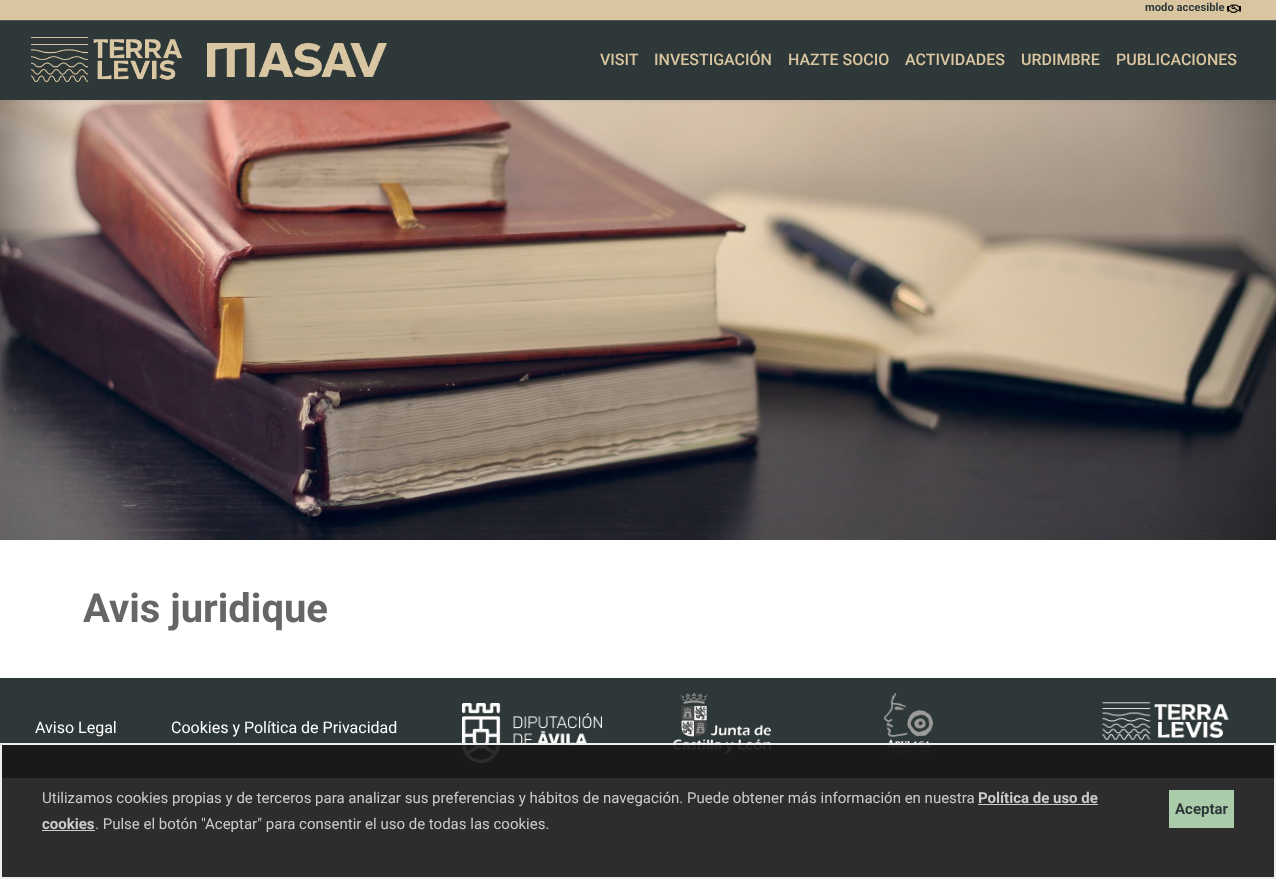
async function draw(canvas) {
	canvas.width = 1276;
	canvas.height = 879;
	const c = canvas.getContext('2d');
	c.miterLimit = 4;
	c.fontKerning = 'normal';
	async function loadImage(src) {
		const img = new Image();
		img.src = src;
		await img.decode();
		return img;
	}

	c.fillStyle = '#fff';
	c.fillRect(0, 0, 1276, 879);
	c.drawImage(await loadImage('img4.png'), 0, 100, 1276, 440);
	c.fillStyle = '#00000012';
	c.filter = 'blur(2.5px)';
	c.beginPath();
	c.rect(0, 21, 1276, 80);
	c.fill();
	c.filter = 'none';
	for (const [x, y, w, h, color] of [
		[0, 21, 1276, 79, '#2f3838'],
		[0, 20, 1276, 1, '#4e5656'],
		[0, 0, 1276, 20, '#d9c6a1'],
	]) {
		c.fillStyle = color;
		c.fillRect(x, y, w, h);
	}
	c.font = 'bold 11.25px Roboto';
	c.fillStyle = '#2f3838';
	c.fillText('modo accesible', 1145, 11);
	c.drawImage(await loadImage('img1.png'), 1227, 4, 14, 9);
	c.drawImage(await loadImage('img2.png'), 31, 37, 151, 45);
	c.drawImage(await loadImage('img3.png'), 207, 43, 180, 34);
	c.font = '500 16px Roboto';
	c.fillStyle = '#d9c6a1';
	for (const [text, x, y] of [
		['VISIT', 600, 65],
		['INVESTIGACIÓN', 654, 65],
		['HAZTE SOCIO', 788, 65],
		['ACTIVIDADES', 905, 65],
		['URDIMBRE', 1021, 65],
		['PUBLICACIONES', 1116, 65],
	]) {
		c.fillText(text, x, y);
	}
	c.font = 'bold 40px Roboto';
	c.fillStyle = '#666';
	c.fillText('Avis juridique', 83, 622);
	c.fillStyle = '#2f3838';
	c.fillRect(0, 678, 1276, 100);
	c.font = '16px Roboto';
	c.fillStyle = '#fff';
	c.fillText('Aviso Legal', 35, 733);
	c.fillText('Cookies y Política de Privacidad', 171, 733);
	c.drawImage(await loadImage('img5.png'), 462, 703, 140, 60);
	c.drawImage(await loadImage('img6.png'), 673, 693, 98, 60);
	c.drawImage(await loadImage('img7.png'), 884, 693, 49, 60);
	c.drawImage(await loadImage('img8.png'), 1102, 702, 127, 38);
	c.fillStyle = '#161616e6';
	c.beginPath();
	c.rect(1, 744, 1274, 134);
	c.fill();
	c.strokeStyle = '#eee';
	c.lineWidth = 2;
	c.stroke();
	c.font = '15px Roboto';
	c.fillStyle = '#ccc';
	c.fillText('Utilizamos cookies propias y de terceros para analizar sus preferencias y hábitos de navegación. Puede obtener más información en nuestra', 42, 803);
	c.font = 'bold 15px Roboto';
	c.fillText('Política de uso de', 978, 803);
	c.fillRect(978, 804, 120, 1);
	c.fillStyle = '#aca';
	c.fillRect(1169, 790, 65, 38);
	c.fillStyle = '#2f3838';
	c.fillText('Aceptar', 1175, 814);
	c.fillStyle = '#ccc';
	c.fillText('cookies', 42, 829);
	c.font = '15px Roboto';
	c.fillText('. Pulse el botón "Aceptar" para consentir el uso de todas las cookies.', 95, 829);
	c.fillRect(42, 830, 53, 1);
}

draw(document.querySelector('canvas'));
